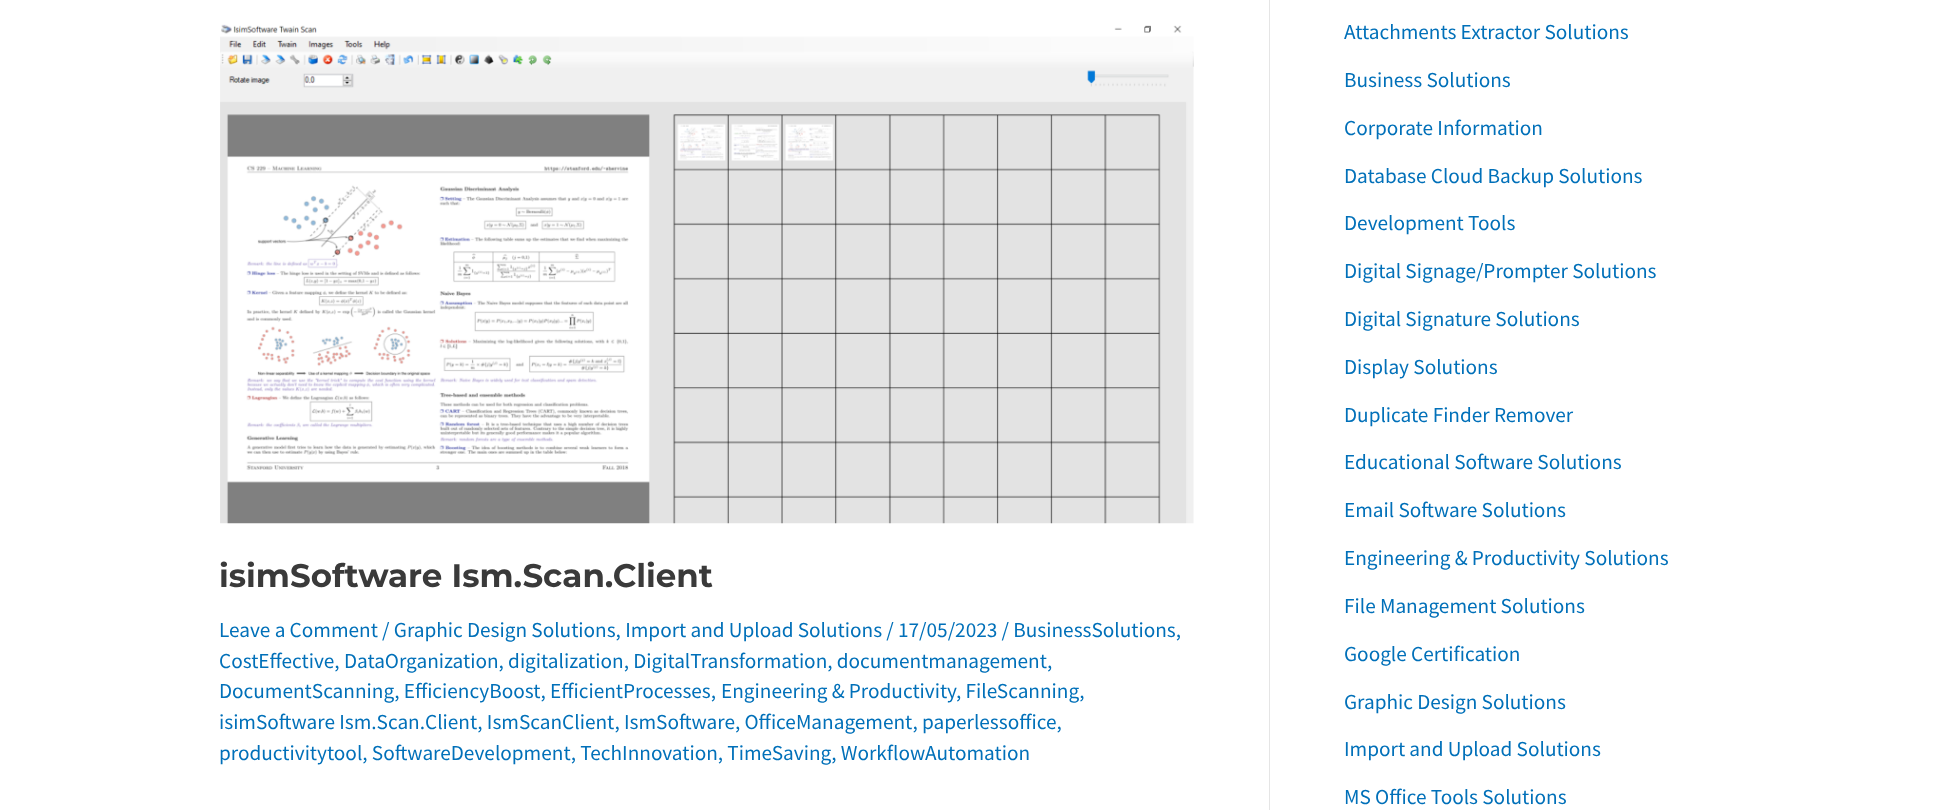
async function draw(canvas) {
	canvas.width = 1938;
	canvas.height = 810;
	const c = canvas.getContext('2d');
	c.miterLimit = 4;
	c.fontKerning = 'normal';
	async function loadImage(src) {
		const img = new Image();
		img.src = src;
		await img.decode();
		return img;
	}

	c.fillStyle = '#fff';
	c.fillRect(0, 0, 1938, 810);
	c.fillStyle = '#e5e5e5';
	c.fillRect(1269, 0, 1, 810);
	c.drawImage(await loadImage('img1.png'), 220, 24, 974, 500);
	c.font = '100 32.5px Montserrat';
	c.fillStyle = '#3a3a3a';
	c.fillText('isimSoftware Ism.Scan.Client', 219, 587);
	c.font = '21.25px Source Sans Pro';
	c.fillStyle = '#0170b9';
	for (const [text, x, y] of [
		['Leave a Comment / Graphic Design Solutions, Import and Upload Solutions / 17/05/2023 / BusinessSolutions,', 219, 637],
		['CostEffective, DataOrganization, digitalization, DigitalTransformation, documentmanagement,', 219, 668],
		['DocumentScanning, EfficiencyBoost, EfficientProcesses,', 219, 698],
		['Engineering & Productivity', 721, 698],
		[', FileScanning,', 956, 698],
		['isimSoftware Ism.Scan.Client, IsmScanClient, IsmSoftware, OfficeManagement, paperlessoffice,', 219, 729],
		['productivitytool, SoftwareDevelopment, TechInnovation, TimeSaving, WorkflowAutomation', 219, 760],
		['Attachments Extractor Solutions', 1344, 39],
		['Business Solutions', 1344, 87],
		['Corporate Information', 1344, 135],
		['Database Cloud Backup Solutions', 1344, 183],
		['Development Tools', 1344, 230],
		['Digital Signage/Prompter Solutions', 1344, 278],
		['Digital Signature Solutions', 1344, 326],
		['Display Solutions', 1344, 374],
		['Duplicate Finder Remover', 1344, 422],
		['Educational Software Solutions', 1344, 469],
		['Email Software Solutions', 1344, 517],
		['Engineering & Productivity Solutions', 1344, 565],
		['File Management Solutions', 1344, 613],
		['Google Certification', 1344, 661],
		['Graphic Design Solutions', 1344, 709],
		['Import and Upload Solutions', 1344, 756],
		['MS Office Tools Solutions', 1344, 804],
	]) {
		c.fillText(text, x, y);
	}
}

draw(document.querySelector('canvas'));
